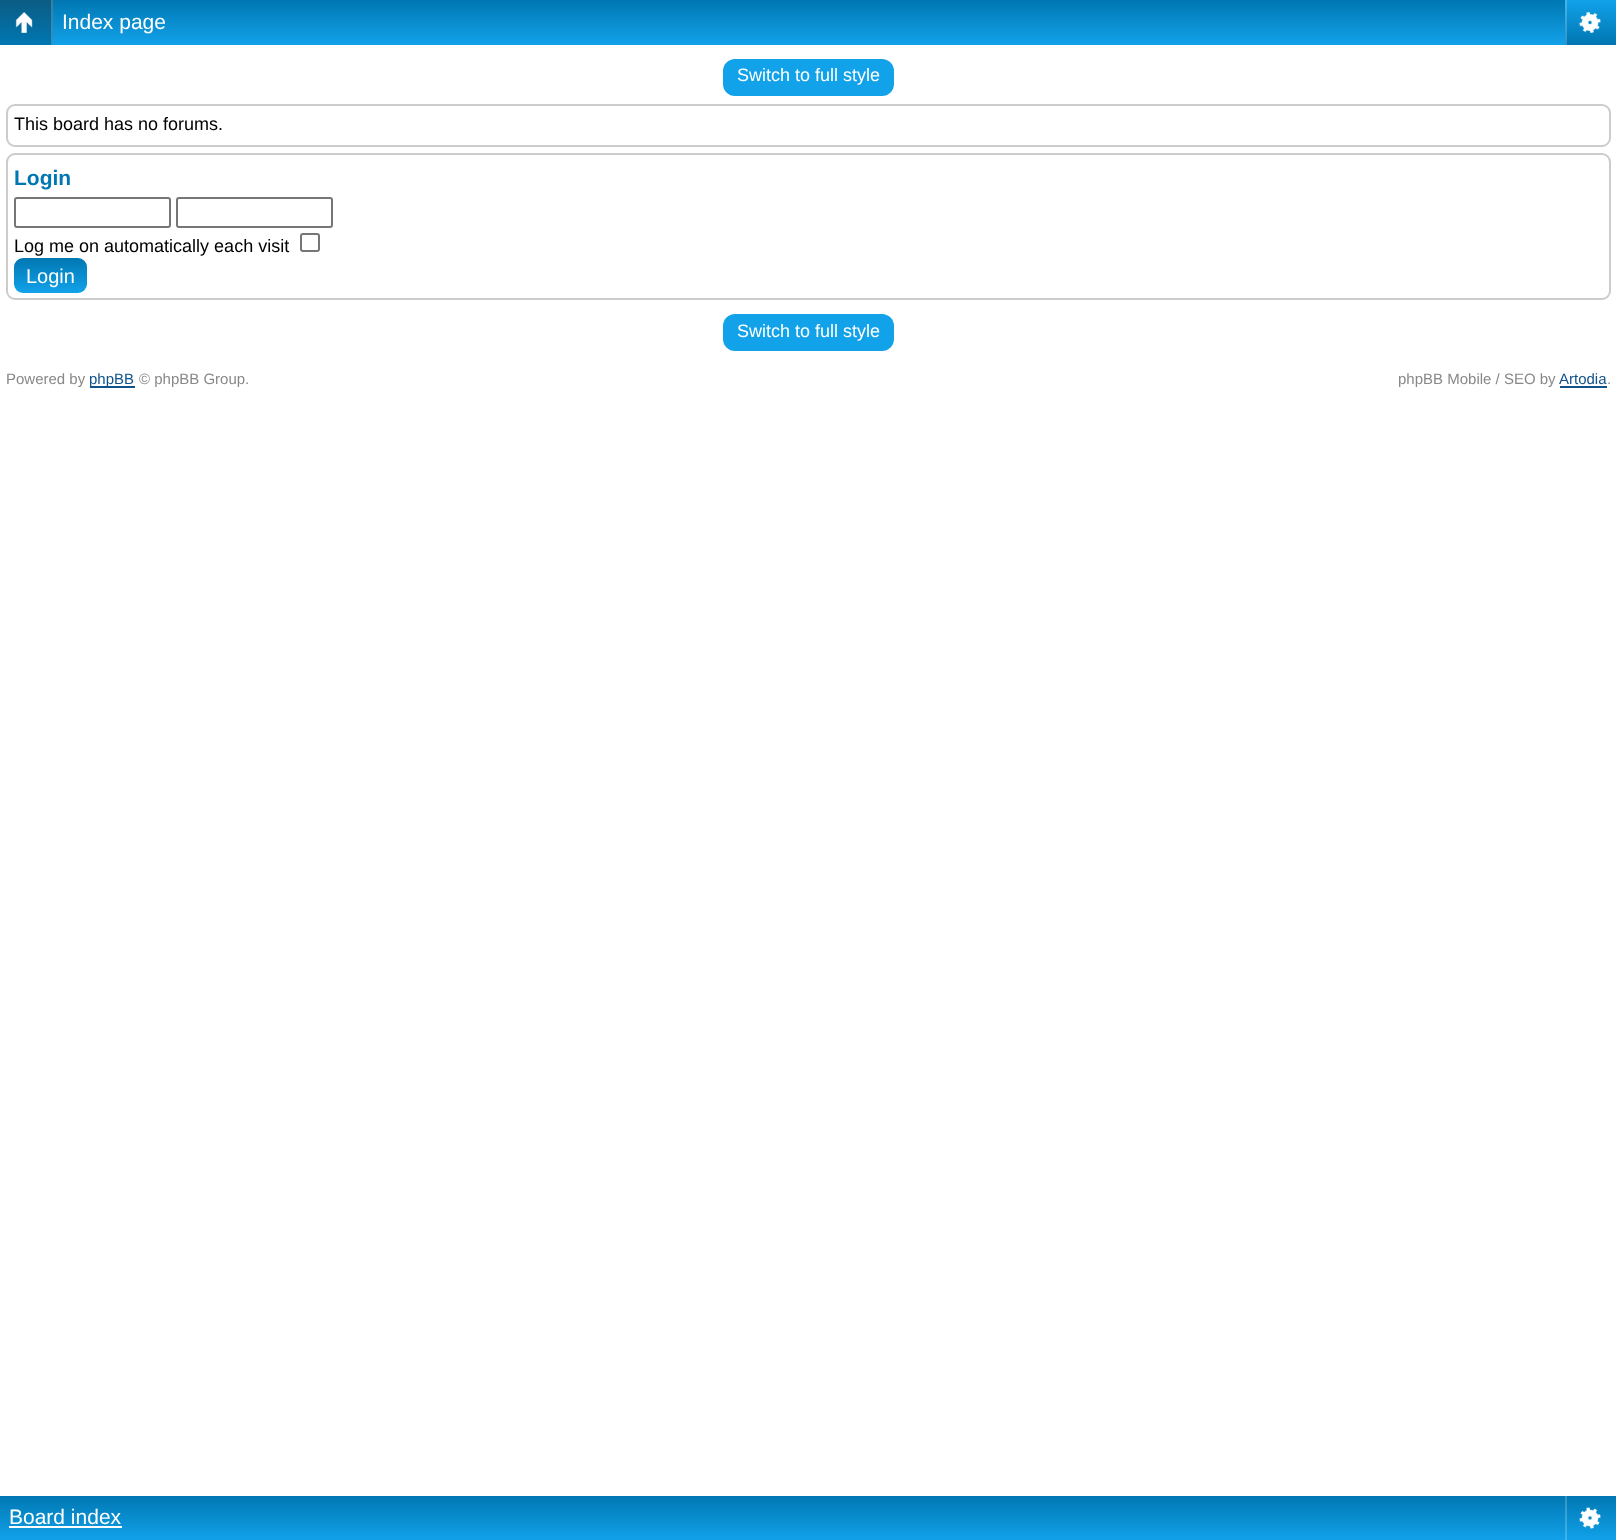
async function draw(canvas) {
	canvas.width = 1616;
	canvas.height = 1540;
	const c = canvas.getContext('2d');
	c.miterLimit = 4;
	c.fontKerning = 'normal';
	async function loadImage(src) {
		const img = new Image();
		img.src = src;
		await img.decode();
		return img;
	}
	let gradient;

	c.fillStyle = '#fff';
	c.fillRect(0, 0, 1616, 1540);
	gradient = c.createLinearGradient(809, 0, 809, 45);
	gradient.addColorStop(0, '#0077b2');
	gradient.addColorStop(1, '#12a2ea');
	c.fillStyle = gradient;
	c.fillRect(53, 0, 1512, 45);
	gradient = c.createLinearGradient(26, 0, 26, 45);
	gradient.addColorStop(0, '#0b5c84');
	gradient.addColorStop(1, '#0077b2');
	c.fillStyle = gradient;
	c.fillRect(0, 0, 51, 45);
	gradient = c.createLinearGradient(26, 0, 26, 45);
	gradient.addColorStop(0, '#3c7d9d');
	gradient.addColorStop(1, '#3392c1');
	c.fillStyle = gradient;
	c.fillRect(51, 0, 2, 45);
	c.drawImage(await loadImage('img1.png'), 15, 12, 18, 21);
	c.font = '21px Liberation Sans';
	c.fillStyle = '#fff';
	c.fillText('Index page', 62, 29);
	gradient = c.createLinearGradient(1591, 0, 1591, 45);
	gradient.addColorStop(0, '#12a2ea');
	gradient.addColorStop(1, '#0076b1');
	c.fillStyle = gradient;
	c.fillRect(1567, 0, 49, 45);
	gradient = c.createLinearGradient(1591, 0, 1591, 45);
	gradient.addColorStop(0, '#41b5ee');
	gradient.addColorStop(1, '#3391c1');
	c.fillStyle = gradient;
	c.fillRect(1565, 0, 2, 45);
	c.drawImage(await loadImage('img2.png'), 1579, 12, 22, 21);
	c.fillStyle = '#12a2ea';
	c.beginPath();
	c.roundRect(723, 59, 171, 37, 12);
	c.fill();
	c.font = '18px Liberation Sans';
	c.fillStyle = '#fff';
	c.fillText('Switch to full style', 737, 81);
	c.beginPath();
	c.roundRect(7, 105, 1603, 41, 8);
	c.strokeStyle = '#ccc';
	c.lineWidth = 2;
	c.stroke();
	c.fillStyle = '#000';
	c.fillText('This board has no forums.', 14, 130);
	c.beginPath();
	c.roundRect(7, 154, 1603, 145, 8);
	c.stroke();
	c.font = 'bold 21px Liberation Sans';
	c.fillStyle = '#0077b2';
	c.fillText('Login', 14, 185);
	c.beginPath();
	c.roundRect(15, 198, 155, 29, 2);
	c.strokeStyle = '#767676';
	c.stroke();
	c.beginPath();
	c.roundRect(177, 198, 155, 29, 2);
	c.stroke();
	c.font = '18px Liberation Sans';
	c.fillStyle = '#000';
	c.fillText('Log me on automatically each visit', 14, 252);
	c.beginPath();
	c.roundRect(301, 234, 18, 17, 2);
	c.stroke();
	gradient = c.createLinearGradient(50, 258, 50, 293);
	gradient.addColorStop(0, '#0077b2');
	gradient.addColorStop(1, '#12a2ea');
	c.fillStyle = gradient;
	c.beginPath();
	c.roundRect(14, 258, 73, 35, 9);
	c.fill();
	c.font = '20px Liberation Sans';
	c.fillStyle = '#fff';
	c.fillText('Login', 26, 283);
	c.fillStyle = '#12a2ea';
	c.beginPath();
	c.roundRect(723, 314, 171, 37, 12);
	c.fill();
	c.font = '18px Liberation Sans';
	c.fillStyle = '#fff';
	c.fillText('Switch to full style', 737, 337);
	c.font = '15px Liberation Sans';
	c.fillStyle = '#888';
	c.fillText('Powered by', 6, 384);
	c.fillStyle = '#105289';
	c.fillRect(90, 386, 45, 2);
	c.fillText('phpBB', 89, 384);
	c.fillStyle = '#888';
	c.fillText('© phpBB Group.', 139, 384);
	c.fillText('phpBB Mobile / SEO by', 1398, 384);
	c.fillStyle = '#105289';
	c.fillText('Artodia', 1559, 384);
	c.fillRect(1560, 386, 47, 2);
	c.fillStyle = '#888';
	c.fillText('.', 1607, 384);
	gradient = c.createLinearGradient(809, 1495, 809, 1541);
	gradient.addColorStop(0, '#0077b2');
	gradient.addColorStop(1, '#12a2ea');
	c.fillStyle = gradient;
	c.fillRect(0, 1496, 1616, 44);
	gradient = c.createLinearGradient(809, 1495, 809, 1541);
	gradient.addColorStop(0, '#3392c1');
	gradient.addColorStop(1, '#41b5ee');
	c.fillStyle = gradient;
	c.fillRect(1565, 1496, 2, 44);
	c.font = '21px Liberation Sans';
	c.fillStyle = '#fff';
	c.fillText('Board index', 9, 1524);
	c.fillRect(9, 1526, 113, 2);
	c.drawImage(await loadImage('img3.png'), 1579, 1507, 22, 22);
}

draw(document.querySelector('canvas'));
